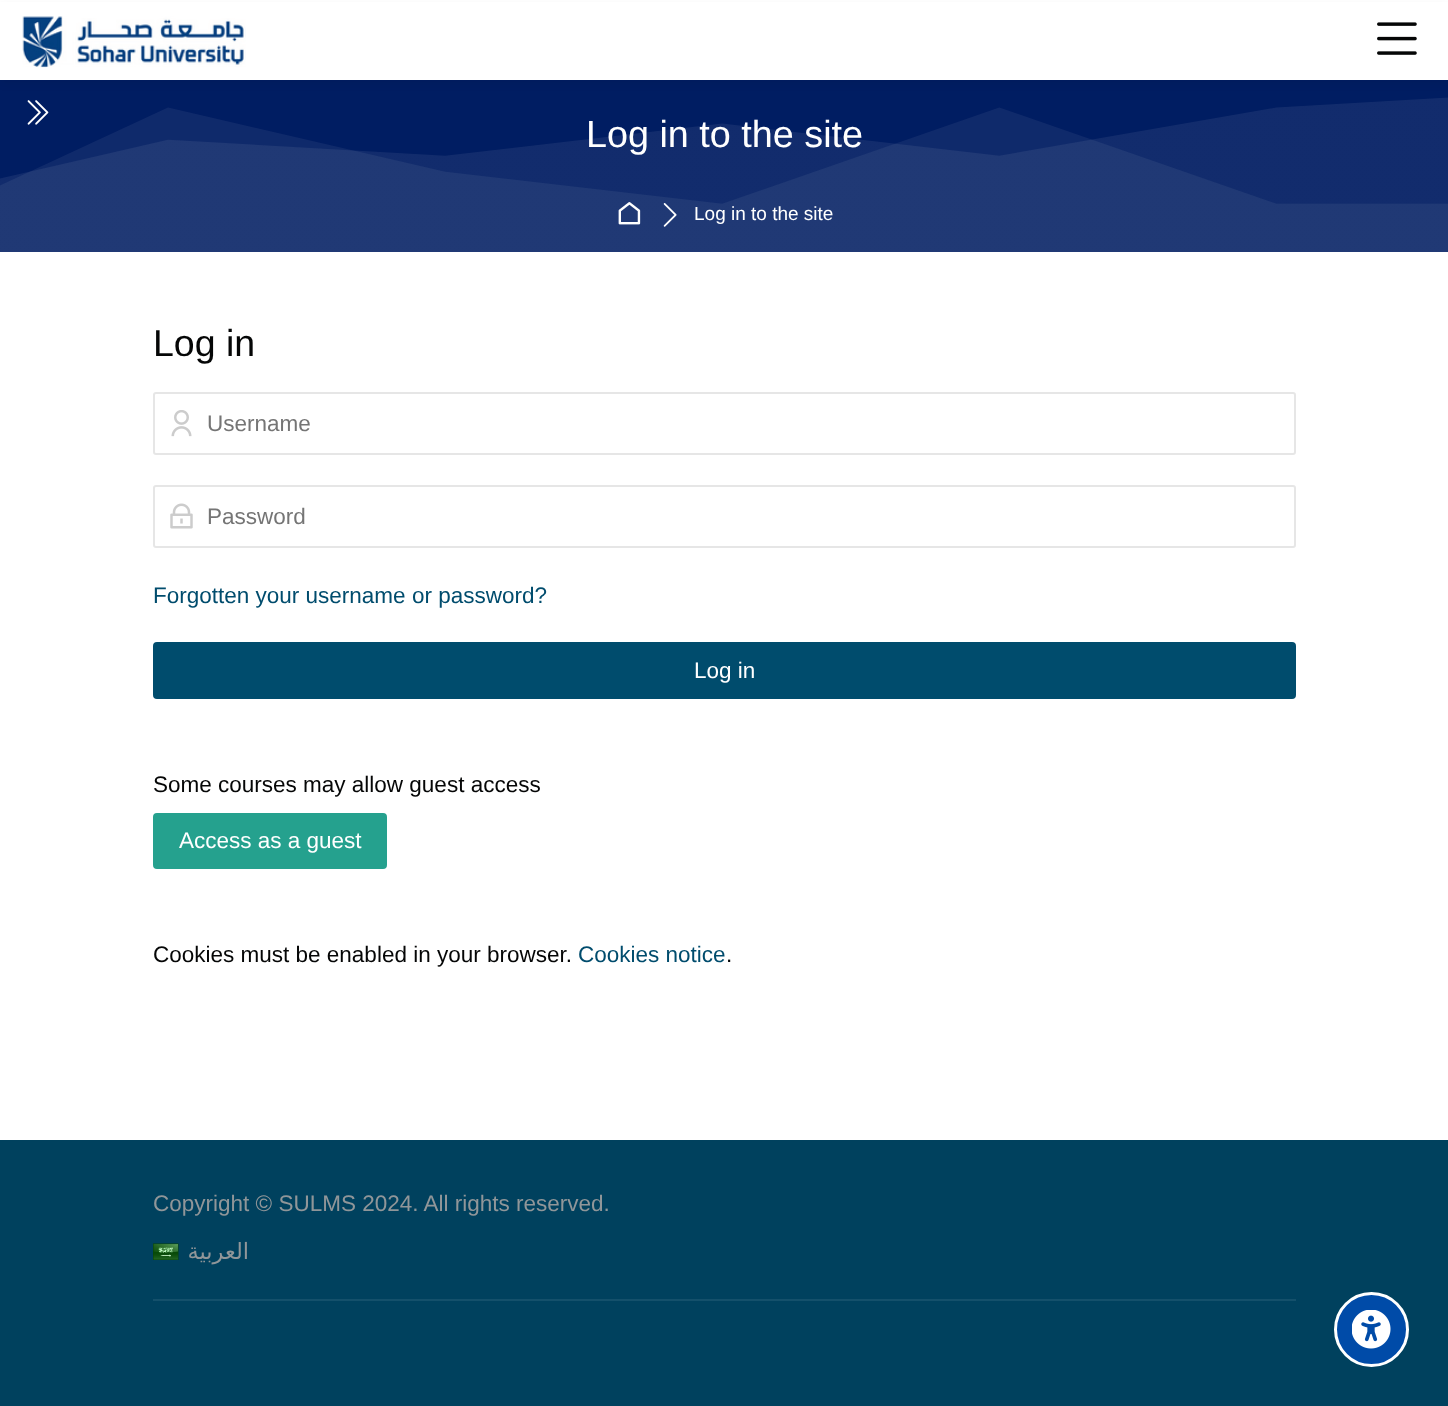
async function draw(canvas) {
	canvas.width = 1448;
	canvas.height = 1406;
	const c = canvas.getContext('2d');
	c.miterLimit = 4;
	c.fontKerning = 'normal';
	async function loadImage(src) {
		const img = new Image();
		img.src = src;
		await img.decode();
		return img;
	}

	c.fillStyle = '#fff';
	c.fillRect(0, 0, 1448, 1406);
	c.fillStyle = '#001d62';
	c.fillRect(0, 80, 1448, 172);
	c.fillStyle = '#0000000d';
	c.filter = 'blur(4px)';
	c.beginPath();
	c.rect(0, 5, 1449, 79);
	c.fill();
	c.filter = 'none';
	c.fillStyle = '#fff';
	c.fillRect(0, 2, 1448, 78);
	c.drawImage(await loadImage('img1.png'), 22, 16, 224, 52);
	c.drawImage(await loadImage('img2.png'), 1377, 22, 40, 33);
	c.drawImage(await loadImage('img4.png'), 0, 97, 1448, 155);
	c.drawImage(await loadImage('img3.png'), 27, 100, 22, 25);
	c.font = '37.75px Liberation Sans';
	c.fillText('Log in to the site', 586, 147);
	c.drawImage(await loadImage('img5.png'), 618, 202, 23, 23);
	c.drawImage(await loadImage('img6.png'), 663, 203, 14, 24);
	c.font = '19px Liberation Sans';
	c.fillText('Log in to the site', 694, 220);
	c.font = '37.5px Liberation Sans';
	c.fillStyle = '#050606';
	c.fillText('Log in', 153, 356);
	c.beginPath();
	c.roundRect(154, 393, 1141, 61, 2);
	c.strokeStyle = '#e6e6e6';
	c.lineWidth = 2;
	c.stroke();
	c.drawImage(await loadImage('img7.png'), 171, 410, 21, 27);
	c.font = '22.5px Liberation Sans';
	c.fillStyle = '#757575';
	c.fillText('Username', 207, 431);
	c.beginPath();
	c.roundRect(154, 486, 1141, 61, 2);
	c.stroke();
	c.drawImage(await loadImage('img8.png'), 170, 503, 23, 26);
	c.fillText('Password', 207, 524);
	c.fillStyle = '#004c6d';
	c.fillText('Forgotten your username or password?', 153, 603);
	c.beginPath();
	c.roundRect(154.5, 643.5, 1140, 54, 2.5);
	c.fill();
	c.strokeStyle = '#004c6d';
	c.lineWidth = 3;
	c.stroke();
	c.fillStyle = '#fff';
	c.fillText('Log in', 694, 678);
	c.fillStyle = '#050606';
	c.fillText('Some courses may allow guest access', 153, 792);
	c.fillStyle = '#25a18e';
	c.beginPath();
	c.roundRect(154.5, 814.5, 231, 53, 2.5);
	c.fill();
	c.strokeStyle = '#25a18e';
	c.stroke();
	c.fillStyle = '#fff';
	c.fillText('Access as a guest', 179, 848);
	c.fillStyle = '#050606';
	c.fillText('Cookies must be enabled in your browser.', 153, 962);
	c.fillStyle = '#004c6d';
	c.fillText('Cookies notice', 578, 962);
	c.fillStyle = '#050606';
	c.fillText('.', 726, 962);
	c.fillStyle = '#00415e';
	c.fillRect(0, 1140, 1448, 266);
	c.fillStyle = '#909699';
	c.fillText('Copyright © SULMS 2024. All rights reserved.', 153, 1211);
	c.drawImage(await loadImage('img9.png'), 153, 1243, 26, 17);
	c.direction = 'rtl';
	c.font = '22.5px DejaVu Sans';
	c.fillText('العربية', 249, 1259);
	c.fillStyle = '#14506b';
	c.fillRect(153, 1299, 1143, 2);
	c.fillStyle = '#004ba8';
	c.beginPath();
	c.arc(1371.5, 1329.5, 36, 0, 2 * Math.PI);
	c.fill();
	c.strokeStyle = '#fff';
	c.stroke();
	c.drawImage(await loadImage('img10.png'), 1352, 1310, 39, 39);
}

draw(document.querySelector('canvas'));
